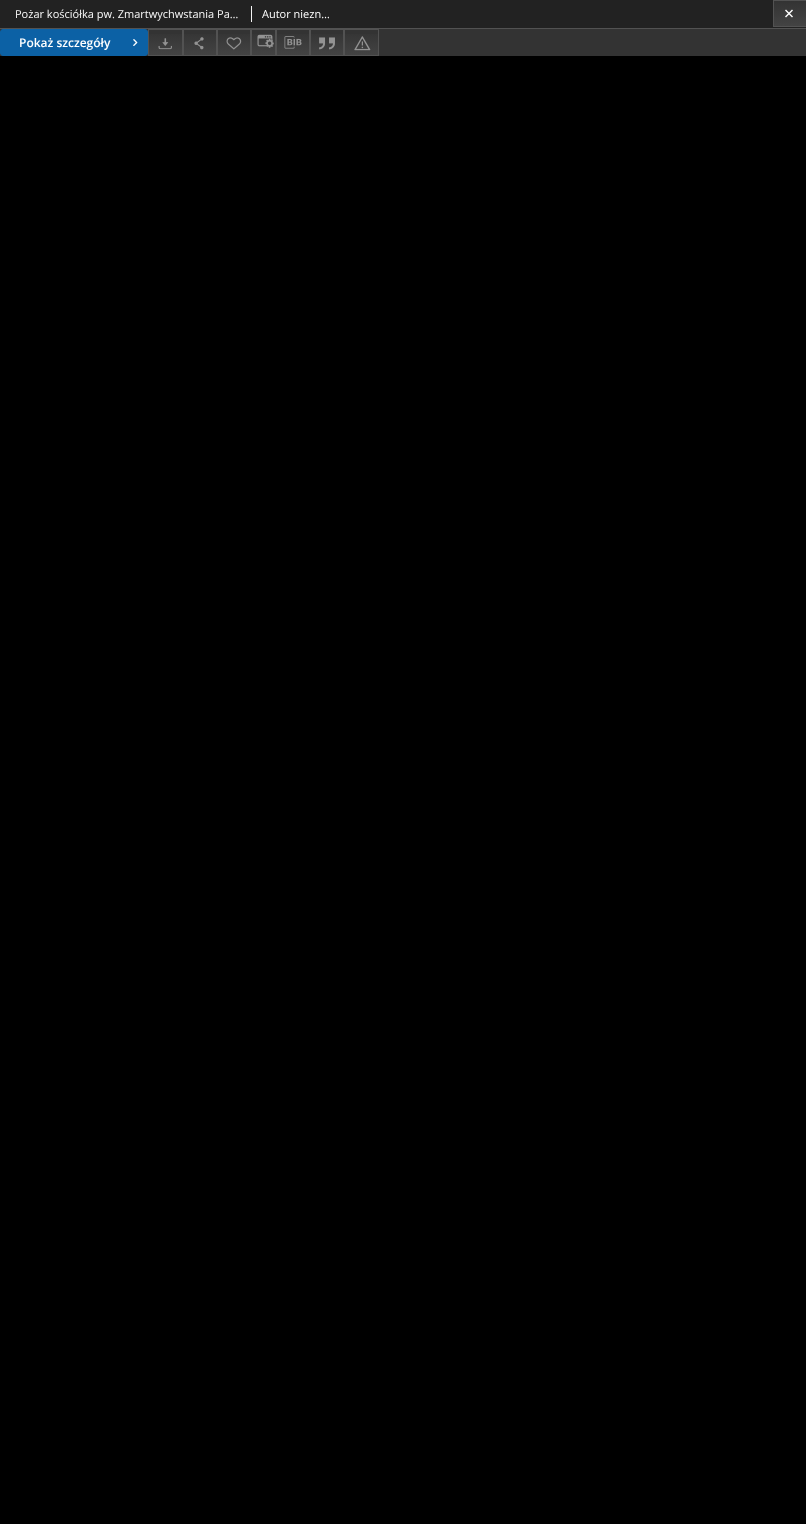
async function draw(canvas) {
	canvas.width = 806;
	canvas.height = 1524;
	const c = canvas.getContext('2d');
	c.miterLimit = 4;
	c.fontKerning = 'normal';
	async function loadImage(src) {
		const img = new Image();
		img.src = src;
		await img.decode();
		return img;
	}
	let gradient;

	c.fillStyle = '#333';
	c.fillRect(0, 0, 806, 1524);
	for (const [x, y, w, h, color] of [
		[0, 0, 806, 28, '#222'],
		[0, 28, 806, 1, '#525252'],
		[251, 6, 1, 16, '#f5f5f5'],
	]) {
		c.fillStyle = color;
		c.fillRect(x, y, w, h);
	}
	c.font = '11px Open Sans';
	c.fillStyle = '#f9f9f9';
	c.fillText('Pożar kościółka pw. Zmartwychwstania Pa…', 15, 18);
	c.fillStyle = '#fff';
	c.fillText('Autor niezn…', 262, 18);
	gradient = c.createLinearGradient(790, 1, 790, 26);
	gradient.addColorStop(0, '#333');
	gradient.addColorStop(1, '#434343');
	c.fillStyle = gradient;
	c.fillRect(774, 1, 32, 25);
	for (const [x, y, w, h, color] of [
		[773, 0, 33, 1, '#525252'],
		[773, 26, 33, 1, '#525252'],
		[773, 0, 1, 27, '#525252'],
	]) {
		c.fillStyle = color;
		c.fillRect(x, y, w, h);
	}
	c.fillStyle = '#fff';
	c.beginPath();
	c.moveTo(785, 16.5);
	c.lineTo(792, 9.5);
	c.lineTo(793, 10.5);
	c.lineTo(786, 17.5);
	c.closePath();
	c.fill();
	c.beginPath();
	c.moveTo(786, 9.5);
	c.lineTo(793, 16.5);
	c.lineTo(792, 17.5);
	c.lineTo(785, 10.5);
	c.closePath();
	c.fill();
	c.fillStyle = '#0c61a5';
	c.beginPath();
	c.roundRect(0.5, 29.5, 147, 26, 2.5);
	c.fill();
	c.strokeStyle = '#0c61a5';
	c.stroke();
	c.font = '600 12px Open Sans';
	c.fillStyle = '#fff';
	c.fillText('Pokaż szczegóły', 19, 47);
	c.drawImage(await loadImage('img1.png'), 133, 39, 5, 7);
	gradient = c.createLinearGradient(166, 30, 166, 55);
	gradient.addColorStop(0, '#333');
	gradient.addColorStop(1, '#434343');
	c.fillStyle = gradient;
	c.fillRect(149, 34, 33, 21);
	c.strokeStyle = '#525252';
	c.strokeRect(148.5, 29.5, 34, 26);
	c.drawImage(await loadImage('img2.png'), 158, 38, 14, 12);
	gradient = c.createLinearGradient(200, 30, 200, 55);
	gradient.addColorStop(0, '#333');
	gradient.addColorStop(1, '#434343');
	c.fillStyle = gradient;
	c.fillRect(184, 34, 32, 21);
	c.strokeRect(183.5, 29.5, 33, 26);
	c.drawImage(await loadImage('img3.png'), 194, 37, 10, 13);
	gradient = c.createLinearGradient(234, 30, 234, 55);
	gradient.addColorStop(0, '#333');
	gradient.addColorStop(1, '#434343');
	c.fillStyle = gradient;
	c.fillRect(218, 34, 32, 21);
	c.strokeRect(217.5, 29.5, 33, 26);
	c.drawImage(await loadImage('img4.png'), 226, 37, 16, 13);
	gradient = c.createLinearGradient(264, 30, 264, 55);
	gradient.addColorStop(0, '#333');
	gradient.addColorStop(1, '#434343');
	c.fillStyle = gradient;
	c.fillRect(252, 34, 23, 21);
	c.strokeRect(251.5, 29.5, 24, 26);
	c.drawImage(await loadImage('img5.png'), 257, 34, 17, 14);
	gradient = c.createLinearGradient(293, 30, 293, 55);
	gradient.addColorStop(0, '#333');
	gradient.addColorStop(1, '#434343');
	c.fillStyle = gradient;
	c.fillRect(277, 34, 32, 21);
	c.strokeRect(276.5, 29.5, 33, 26);
	c.drawImage(await loadImage('img6.png'), 284, 36, 18, 13);
	gradient = c.createLinearGradient(327, 30, 327, 55);
	gradient.addColorStop(0, '#333');
	gradient.addColorStop(1, '#434343');
	c.fillStyle = gradient;
	c.fillRect(311, 34, 32, 21);
	c.strokeRect(310.5, 29.5, 33, 26);
	c.drawImage(await loadImage('img7.png'), 319, 37, 16, 13);
	gradient = c.createLinearGradient(362, 30, 362, 55);
	gradient.addColorStop(0, '#333');
	gradient.addColorStop(1, '#434343');
	c.fillStyle = gradient;
	c.fillRect(345, 34, 33, 21);
	c.strokeRect(344.5, 29.5, 34, 26);
	c.drawImage(await loadImage('img8.png'), 354, 36, 17, 15);
	c.fillStyle = '#000';
	c.fillRect(0, 56, 806, 1468);
}

draw(document.querySelector('canvas'));
